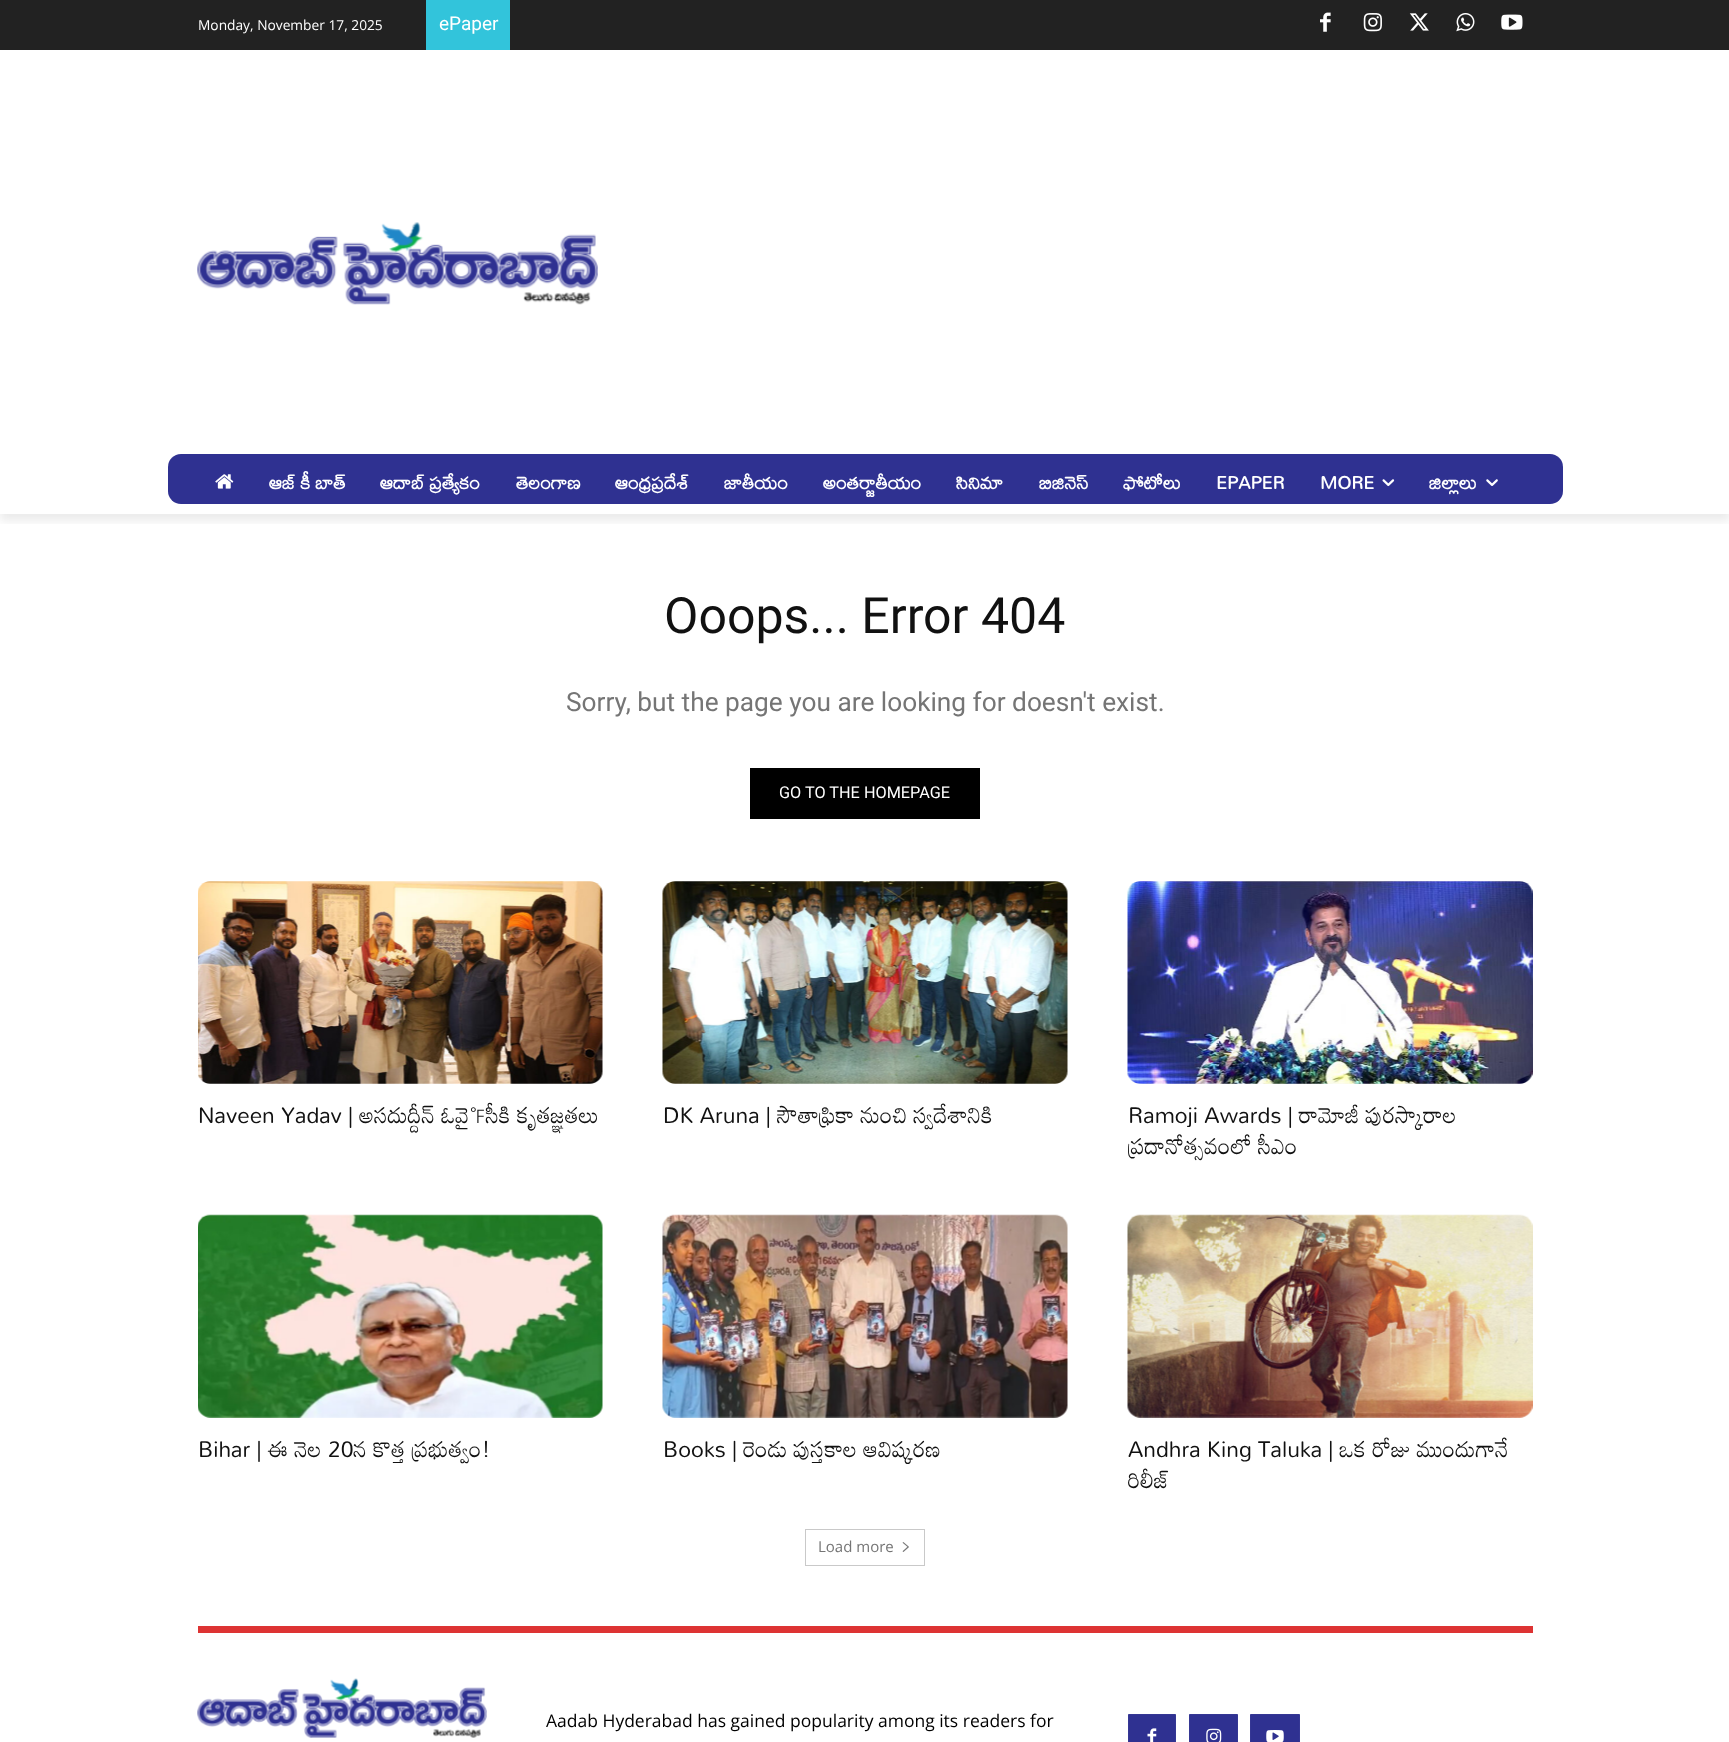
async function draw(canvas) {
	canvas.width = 1729;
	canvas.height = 1742;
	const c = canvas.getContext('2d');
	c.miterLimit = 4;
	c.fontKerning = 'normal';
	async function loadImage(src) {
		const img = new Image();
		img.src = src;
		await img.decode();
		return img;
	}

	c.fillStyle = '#fff';
	c.fillRect(0, 0, 1729, 1742);
	c.fillStyle = '#222';
	c.fillRect(0, 0, 1729, 50);
	c.fillStyle = '#32c4db';
	c.fillRect(426, 0, 84, 50);
	c.drawImage(await loadImage('img1.png'), 1320, 12, 11, 20);
	c.drawImage(await loadImage('img2.png'), 1363, 13, 19, 19);
	c.drawImage(await loadImage('img3.png'), 1409, 13, 20, 18);
	c.drawImage(await loadImage('img4.png'), 1456, 13, 19, 19);
	c.drawImage(await loadImage('img5.png'), 1501, 14, 22, 16);
	c.drawImage(await loadImage('img6.png'), 197, 222, 401, 83);
	c.fillStyle = '#2f3191';
	c.beginPath();
	c.roundRect(168, 454, 1395, 50, 13);
	c.fill();
	c.save();
	c.beginPath();
	c.rect(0, 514, 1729, 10);
	c.clip();
	c.fillStyle = '#00000014';
	c.filter = 'blur(5px)';
	c.beginPath();
	c.rect(0, 8, 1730, 513);
	c.fill();
	c.filter = 'none';
	c.restore();
	c.font = '13.75px Open Sans';
	c.fillStyle = '#fff';
	c.fillText('Monday, November 17, 2025', 198, 30);
	c.font = '19px Roboto';
	c.fillText('ePaper', 439, 30);
	c.drawImage(await loadImage('img7.png'), 215, 474, 19, 15);
	c.font = 'bold 20px Mallanna';
	for (const [text, x, y] of [
		['ఆజ్ కీ బాత్', 269, 489],
		['ఆదాబ్ ప్రత్యేకం', 380, 489],
		['తెలంగాణ', 516, 489],
		['ఆంధ్రప్రదేశ్', 615, 489],
		['జాతీయం', 724, 489],
		['అంతర్జాతీయం', 823, 489],
		['సినిమా', 956, 489],
		['బిజినెస్', 1039, 489],
		['ఫోటోలు', 1123, 489],
		['EPAPER', 1216, 489],
		['MORE', 1320, 489],
	]) {
		c.fillText(text, x, y);
	}
	c.drawImage(await loadImage('img8.png'), 1382, 479, 13, 8);
	c.fillText('జిల్లాలు', 1429, 489);
	c.drawImage(await loadImage('img9.png'), 1486, 479, 12, 7);
	c.font = '50px Roboto';
	c.fillStyle = '#111';
	c.fillText('Ooops... Error 404', 664, 633);
	c.font = '26.25px Roboto';
	c.fillStyle = '#757575';
	c.fillText('Sorry, but the page you are looking for doesn\'t exist.', 566, 711);
	c.fillStyle = '#000';
	c.fillRect(750, 768, 230, 51);
	c.font = '16.25px Roboto';
	c.fillStyle = '#fff';
	c.fillText('GO TO THE HOMEPAGE', 779, 798);
	c.drawImage(await loadImage('img10.png'), 198, 881, 405, 203);
	c.font = '22.5px Mandali';
	c.fillStyle = '#111';
	c.fillText('Naveen Yadav | అసదుద్దీన్ ఓవైసీకి కృతజ్ఞతలు', 198, 1123);
	c.drawImage(await loadImage('img11.png'), 662, 881, 406, 203);
	c.fillText('DK Aruna | సౌతాఫ్రికా నుంచి స్వదేశానికి', 663, 1123);
	c.drawImage(await loadImage('img12.png'), 1127, 881, 406, 203);
	c.fillText('Ramoji Awards | రామోజీ పురస్కారాల', 1128, 1123);
	c.fillText('ప్రదానోత్సవంలో సీఎం', 1128, 1154);
	c.drawImage(await loadImage('img13.png'), 198, 1214, 405, 204);
	c.fillText('Bihar | ఈ నెల 20న కొత్త ప్రభుత్వం!', 198, 1457);
	c.drawImage(await loadImage('img14.png'), 662, 1214, 406, 204);
	c.fillText('Books | రెండు పుస్తకాల ఆవిష్కరణ', 663, 1457);
	c.drawImage(await loadImage('img15.png'), 1127, 1214, 406, 204);
	c.fillText('Andhra King Taluka | ఒక రోజు ముందుగానే', 1128, 1457);
	c.fillText('రిలీజ్', 1128, 1488);
	c.strokeStyle = '#c9c9c9';
	c.strokeRect(805.5, 1529.5, 119, 36);
	c.font = '15px Open Sans';
	c.fillStyle = '#757575';
	c.fillText('Load more', 818, 1552);
	c.drawImage(await loadImage('img16.png'), 902, 1542, 7, 10);
	c.fillStyle = '#d33';
	c.fillRect(198, 1626, 1335, 7);
	c.drawImage(await loadImage('img17.png'), 197, 1678, 290, 60);
	c.font = '17.5px Open Sans';
	c.fillStyle = '#000';
	c.fillText('Aadab Hyderabad has gained popularity among its readers for', 546, 1727);
	c.fillStyle = '#2f3191';
	c.beginPath();
	c.rect(1128.5, 1714.5, 47, 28);
	c.fill();
	c.strokeStyle = '#353794';
	c.stroke();
	c.drawImage(await loadImage('img18.png'), 1147, 1728, 10, 14);
	c.beginPath();
	c.rect(1189.5, 1714.5, 48, 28);
	c.fill();
	c.stroke();
	c.drawImage(await loadImage('img19.png'), 1206, 1728, 16, 14);
	c.beginPath();
	c.rect(1250.5, 1714.5, 49, 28);
	c.fill();
	c.stroke();
	c.drawImage(await loadImage('img20.png'), 1266, 1730, 18, 12);
}

draw(document.querySelector('canvas'));
